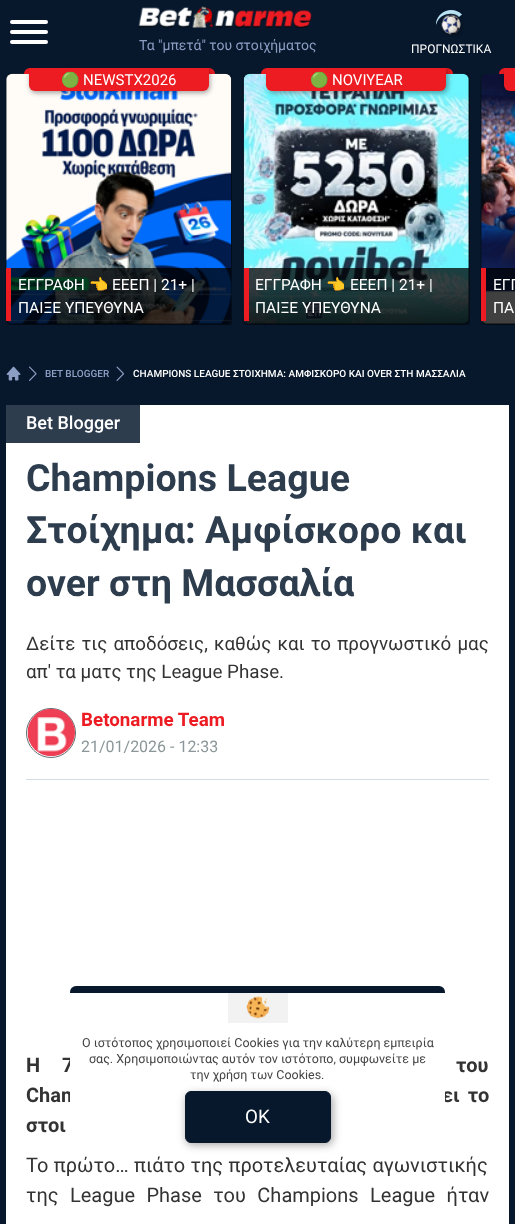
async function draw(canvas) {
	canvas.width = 515;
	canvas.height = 1224;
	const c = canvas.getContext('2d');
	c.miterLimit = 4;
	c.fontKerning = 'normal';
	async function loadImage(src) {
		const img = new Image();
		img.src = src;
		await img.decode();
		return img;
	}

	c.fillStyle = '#07182c';
	c.fillRect(0, 0, 515, 1224);
	c.fillStyle = '#fff';
	c.beginPath();
	c.roundRect(10, 30, 38, 4, 2);
	c.fill();
	c.beginPath();
	c.roundRect(10, 20, 38, 4, 2);
	c.fill();
	c.beginPath();
	c.roundRect(10, 40, 38, 4, 2);
	c.fill();
	c.drawImage(await loadImage('img1.png'), 138, 6, 174, 22);
	c.font = '14px Roboto';
	c.fillStyle = '#8d9ec5';
	c.fillText('Τα "μπετά" του στοιχήματος', 139, 50);
	c.fillStyle = '#b9e2f3';
	c.beginPath();
	c.moveTo(451, 10);
	c.bezierCurveTo(444, 10, 437.5, 15, 436, 22.5);
	c.lineTo(436.5, 25);
	c.bezierCurveTo(437, 15, 452.5, 10, 459, 17);
	c.lineTo(462, 14.5);
	c.bezierCurveTo(459, 11.5, 455.5, 10, 451, 10);
	c.closePath();
	c.fill();
	c.drawImage(await loadImage('img2.png'), 441, 13, 22, 24);
	c.font = '12px Roboto';
	c.fillStyle = '#fff';
	c.fillText('ΠΡΟΓΝΩΣΤΙΚΑ', 411, 53);
	c.drawImage(await loadImage('img3.png'), 5, 73, 227, 252);
	c.fillStyle = '#ec1c22';
	c.beginPath();
	c.roundRect(24, 68, 191, 6, [6, 6, 0, 0]);
	c.fill();
	c.save();
	c.beginPath();
	c.rect(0, 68, 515, 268);
	c.clip();
	c.fillStyle = '#00000059';
	c.filter = 'blur(2.5px)';
	c.beginPath();
	c.roundRect(30, 68, 180, 25, 6);
	c.fill();
	c.filter = 'none';
	c.restore();
	c.beginPath();
	c.roundRect(29, 68, 180, 23, [0, 0, 6, 6]);
	c.fill();
	c.font = '15px Noto Color Emoji';
	c.fillStyle = '#fff';
	c.fillText('🟢', 61, 85);
	c.font = '15px Roboto';
	c.fillText('NEWSTX2026', 83, 85);
	c.fillStyle = '#000000bf';
	c.beginPath();
	c.roundRect(6, 268, 225, 56, [0, 0, 6, 6]);
	c.fill();
	c.fillStyle = '#ec1c22';
	c.fillRect(6, 268, 5, 53);
	c.font = '15.5px Roboto';
	c.fillStyle = '#fff';
	c.fillText('ΕΓΓΡΑΦΗ', 18, 290);
	c.font = '15.5px Noto Color Emoji';
	c.fillText('👈', 89, 290);
	c.font = '15.5px Roboto';
	c.fillText('ΕΕΕΠ | 21+ |', 112, 290);
	c.fillText('ΠΑΙΞΕ ΥΠΕΥΘΥΝΑ', 18, 313);
	c.drawImage(await loadImage('img4.png'), 242, 73, 228, 252);
	c.fillStyle = '#ec1c22';
	c.beginPath();
	c.roundRect(261, 68, 192, 6, [6, 6, 0, 0]);
	c.fill();
	c.save();
	c.beginPath();
	c.rect(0, 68, 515, 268);
	c.clip();
	c.fillStyle = '#00000059';
	c.filter = 'blur(2.5px)';
	c.beginPath();
	c.roundRect(268, 68, 180, 25, 6);
	c.fill();
	c.filter = 'none';
	c.restore();
	c.beginPath();
	c.roundRect(266, 68, 180, 23, [0, 0, 6, 6]);
	c.fill();
	c.font = '15px Noto Color Emoji';
	c.fillStyle = '#fff';
	c.fillText('🟢', 310, 85);
	c.font = '15px Roboto';
	c.fillText('NOVIYEAR', 332, 85);
	c.fillStyle = '#000000bf';
	c.beginPath();
	c.roundRect(244, 268, 225, 56, [0, 0, 6, 6]);
	c.fill();
	c.fillStyle = '#ec1c22';
	c.fillRect(244, 268, 5, 53);
	c.font = '15.5px Roboto';
	c.fillStyle = '#fff';
	c.fillText('ΕΓΓΡΑΦΗ', 255, 290);
	c.font = '15.5px Noto Color Emoji';
	c.fillText('👈', 326, 290);
	c.font = '15.5px Roboto';
	c.fillText('ΕΕΕΠ | 21+ |', 350, 290);
	c.fillText('ΠΑΙΞΕ ΥΠΕΥΘΥΝΑ', 255, 313);
	c.fillStyle = '#ec1c22';
	c.beginPath();
	c.roundRect(499, 68, 16, 6, [6, 0, 0, 0]);
	c.fill();
	c.drawImage(await loadImage('img5.png'), 480, 74, 35, 251);
	c.save();
	c.beginPath();
	c.rect(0, 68, 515, 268);
	c.clip();
	c.fillStyle = '#00000059';
	c.filter = 'blur(2.5px)';
	c.beginPath();
	c.roundRect(505, 68, 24, 25, 6);
	c.fill();
	c.filter = 'none';
	c.restore();
	c.beginPath();
	c.roundRect(504, 68, 11, 23, [0, 0, 0, 6]);
	c.fill();
	c.fillStyle = '#000000bf';
	c.beginPath();
	c.roundRect(481, 268, 34, 56, [0, 0, 0, 6]);
	c.fill();
	c.fillStyle = '#ec1c22';
	c.fillRect(481, 268, 5, 53);
	c.fillStyle = '#fff';
	c.fillText('ΕΓΓ', 493, 290);
	c.fillText('ΠΑ', 493, 313);
	c.drawImage(await loadImage('img6.png'), 6, 366, 15, 15);
	c.drawImage(await loadImage('img7.png'), 29, 366, 8, 15);
	c.font = '500 10px Roboto';
	c.fillStyle = '#8d9ec5';
	c.fillText('BET BLOGGER', 45, 377);
	c.drawImage(await loadImage('img8.png'), 116, 366, 9, 15);
	c.fillStyle = '#fff';
	c.fillText('CHAMPIONS LEAGUE ΣΤΟΙΧΗΜΑ: ΑΜΦΙΣΚΟΡΟ ΚΑΙ OVER ΣΤΗ ΜΑΣΣΑΛΙΑ', 133, 377);
	c.fillRect(6, 405, 503, 819);
	c.fillStyle = '#2d3d4e';
	c.fillRect(6, 405, 134, 38);
	c.font = '500 18px Roboto';
	c.fillStyle = '#fff';
	c.fillText('Bet Blogger', 26, 429);
	c.font = 'bold 37.6px Roboto';
	c.fillStyle = '#2d3d4e';
	for (const [text, x, y] of [
		['Champions League', 26, 491],
		['Στοίχημα: Αμφίσκορο και', 26, 543],
		['over στη Μασσαλία', 26, 596],
	]) {
		c.fillText(text, x, y);
	}
	c.wordSpacing = '1.5px';
	c.font = '18.8px Roboto';
	c.fillStyle = '#333';
	c.fillText('Δείτε τις αποδόσεις, καθώς και το προγνωστικό μας', 26, 650);
	c.wordSpacing = '0px';
	c.fillText('απ\' τα ματς της League Phase.', 26, 678);
	c.beginPath();
	c.arc(51, 733, 24.5, 0, 2 * Math.PI);
	c.strokeStyle = '#5f6f73';
	c.stroke();
	c.drawImage(await loadImage('img9.png'), 27, 708, 48, 49);
	c.font = 'bold 18.8px Roboto';
	c.fillStyle = '#ec1c22';
	c.fillText('Betonarme Team', 81, 726);
	c.font = '16px Roboto';
	c.fillStyle = '#8b9699';
	c.fillText('21/01/2026 - 12:33', 81, 752);
	c.fillStyle = '#d4dde7';
	c.fillRect(26, 779, 463, 1);
	c.wordSpacing = '17px';
	c.font = 'bold 20px Roboto';
	c.fillStyle = '#333';
	c.fillText('Η 7', 26, 1072);
	c.fillText('του', 456, 1072);
	c.wordSpacing = '3px';
	c.fillText('Cham', 26, 1102);
	c.fillText('ει το', 442, 1102);
	c.wordSpacing = '0px';
	c.fillText('στοι', 26, 1132);
	c.wordSpacing = '0.5px';
	c.font = '20px Roboto';
	c.fillText('Το πρώτο… πιάτο της προτελευταίας αγωνιστικής', 26, 1172);
	c.wordSpacing = '6.5px';
	c.fillText('της League Phase του Champions League ήταν', 26, 1202);
	c.fillStyle = '#fff';
	c.beginPath();
	c.roundRect(70, 986, 375, 164, 6);
	c.fill();
	c.fillStyle = '#07182c';
	c.beginPath();
	c.roundRect(70, 986, 375, 7, [6, 6, 0, 0]);
	c.fill();
	c.fillStyle = '#0000000d';
	c.fillRect(228, 993, 60, 30);
	c.drawImage(await loadImage('img10.png'), 246, 996, 24, 23);
	c.wordSpacing = '0px';
	c.font = '12.5px Roboto';
	c.fillStyle = '#444';
	for (const [text, x, y] of [
		['Ο ιστότοπος χρησιμοποιεί Cookies για την καλύτερη εμπειρία', 82, 1047],
		['σας. Χρησιμοποιώντας αυτόν τον ιστότοπο, συμφωνείτε με', 89, 1063],
		['την χρήση των Cookies.', 190, 1079],
	]) {
		c.fillText(text, x, y);
	}
	c.fillStyle = '#00000059';
	c.filter = 'blur(4px)';
	c.beginPath();
	c.roundRect(186, 1094, 147, 51, 6);
	c.fill();
	c.filter = 'none';
	c.fillStyle = '#07182c';
	c.beginPath();
	c.roundRect(185.5, 1091.5, 145, 51, 5.5);
	c.fill();
	c.strokeStyle = '#07182c';
	c.stroke();
	c.font = '18.8px Roboto';
	c.fillStyle = '#fff';
	c.fillText('OK', 245, 1123);
}

draw(document.querySelector('canvas'));
